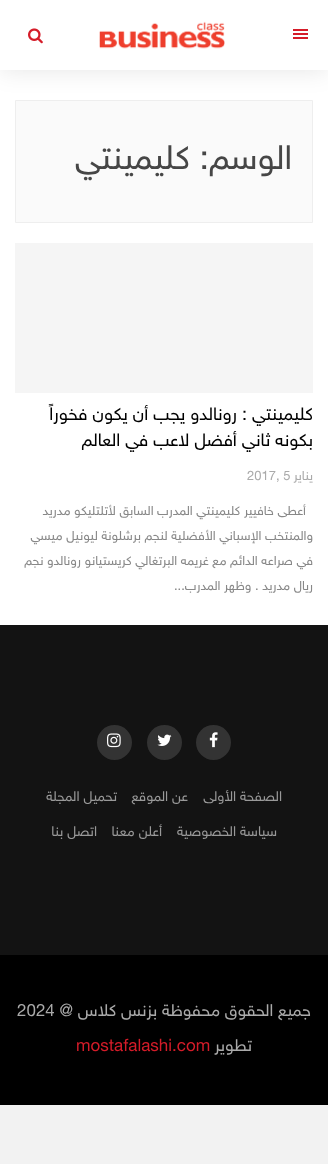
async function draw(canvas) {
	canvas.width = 328;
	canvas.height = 1164;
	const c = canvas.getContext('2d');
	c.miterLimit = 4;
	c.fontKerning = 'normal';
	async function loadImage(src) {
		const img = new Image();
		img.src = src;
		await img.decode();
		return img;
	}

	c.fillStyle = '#f2f2f2';
	c.fillRect(0, 0, 328, 1164);
	c.fillStyle = '#fff';
	c.fillRect(0, 70, 328, 555);
	c.fillStyle = '#fafafa';
	c.beginPath();
	c.rect(15.5, 100.5, 297, 122);
	c.fill();
	c.strokeStyle = '#eee';
	c.stroke();
	c.fillStyle = '#0000001a';
	c.filter = 'blur(12px)';
	c.beginPath();
	c.rect(0, 0, 328, 70);
	c.fill();
	c.filter = 'none';
	for (const [x, y, w, h, color] of [
		[0, 0, 328, 70, '#fff'],
		[293, 29, 15, 2, '#d51c29'],
		[293, 33, 15, 2, '#d51c29'],
		[293, 37, 15, 2, '#d51c29'],
	]) {
		c.fillStyle = color;
		c.fillRect(x, y, w, h);
	}
	c.drawImage(await loadImage('img1.png'), 99, 21, 126, 28);
	c.drawImage(await loadImage('img2.png'), 28, 28, 15, 16);
	c.direction = 'rtl';
	c.font = '34px "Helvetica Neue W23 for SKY"';
	c.fillStyle = '#464646';
	c.fillText('الوسم:', 292, 169);
	c.fillText('كليمينتي', 190, 169);
	c.fillStyle = '#f5f5f5';
	c.fillRect(15, 243, 298, 150);
	c.font = '18px "Helvetica Neue W23 for SKY"';
	c.fillStyle = '#000';
	c.fillText('كليمينتي : رونالدو يجب أن يكون فخوراً', 313, 420);
	c.fillText('بكونه ثاني أفضل لاعب في العالم', 313, 446);
	c.font = '13px "Helvetica Neue W23 for SKY"';
	c.fillStyle = '#aaa';
	c.fillText('يناير', 313, 480);
	c.direction = 'ltr';
	c.fillText('2017, 5', 247, 480);
	c.direction = 'rtl';
	c.fillStyle = '#888';
	for (const [text, x, y] of [
		['أعطى خافيير كليمينتي المدرب السابق لأتلتليكو مدريد', 306, 515],
		['والمنتخب الإسباني الأفضلية لنجم برشلونة ليونيل ميسي', 313, 540],
		['في صراعه الدائم مع غريمه البرتغالي كريستيانو رونالدو نجم', 313, 565],
		['ريال مدريد . وظهر المدرب...', 313, 590],
	]) {
		c.fillText(text, x, y);
	}
	c.fillStyle = '#131313';
	c.fillRect(0, 625, 328, 330);
	c.fillStyle = '#333';
	c.beginPath();
	c.arc(213.5, 742.5, 17.5, 0, 2 * Math.PI);
	c.fill();
	c.drawImage(await loadImage('img3.png'), 209, 732, 9, 16);
	c.beginPath();
	c.arc(164.5, 742.5, 17.5, 0, 2 * Math.PI);
	c.fill();
	c.drawImage(await loadImage('img4.png'), 157, 734, 15, 12);
	c.beginPath();
	c.arc(114.5, 742.5, 17.5, 0, 2 * Math.PI);
	c.fill();
	c.drawImage(await loadImage('img5.png'), 107, 733, 14, 15);
	c.font = '14px "Helvetica Neue W23 for SKY"';
	c.fillStyle = '#999';
	for (const [text, x, y] of [
		['الصفحة الأولى', 282, 801],
		['عن الموقع', 188, 801],
		['تحميل المجلة', 117, 801],
		['سياسة الخصوصية', 277, 836],
		['أعلن معنا', 162, 836],
		['اتصل بنا', 97, 836],
	]) {
		c.fillText(text, x, y);
	}
	c.fillStyle = '#000';
	c.fillRect(0, 955, 328, 150);
	c.font = '17px "Helvetica Neue W23 for SKY"';
	c.fillStyle = '#aaa';
	c.fillText('جميع الحقوق محفوظة بزنس كلاس @', 311, 1016);
	c.direction = 'ltr';
	c.fillText('2024', 17, 1016);
	c.direction = 'rtl';
	c.fillText('تطوير', 252, 1051);
	c.direction = 'ltr';
	c.fillStyle = '#d51c29';
	c.fillText('mostafalashi.com', 76, 1051);
}

draw(document.querySelector('canvas'));
